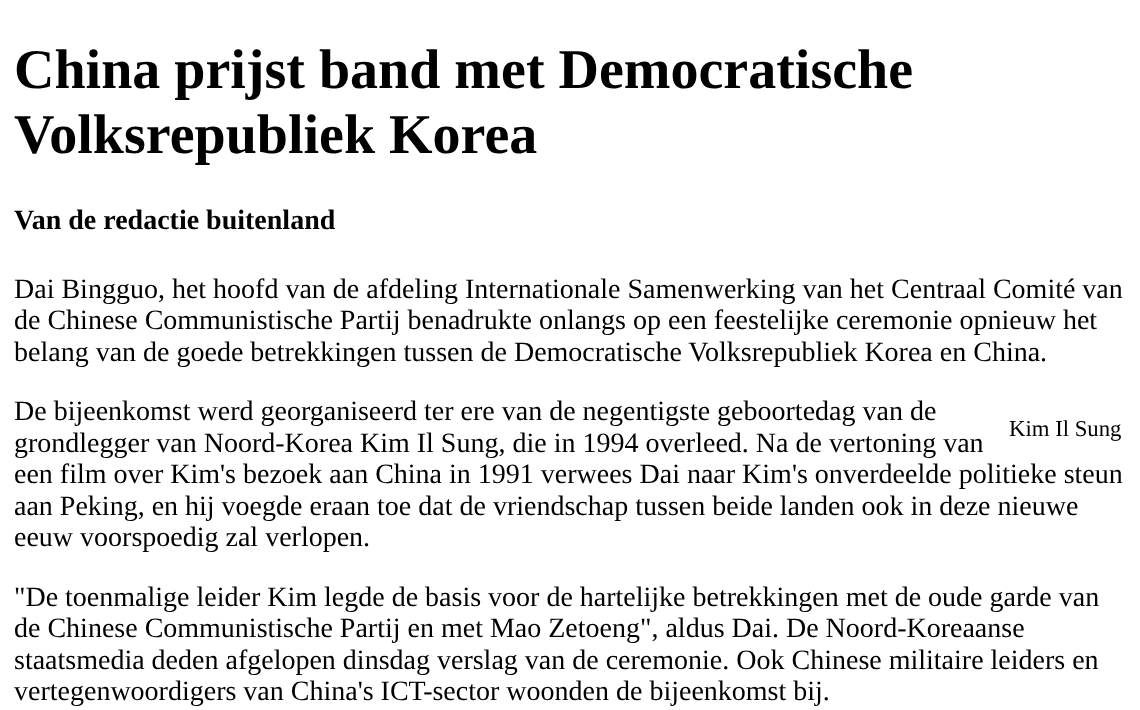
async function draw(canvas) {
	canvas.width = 1140;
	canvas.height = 710;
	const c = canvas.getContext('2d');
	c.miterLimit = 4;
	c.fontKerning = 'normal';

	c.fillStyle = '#fff';
	c.fillRect(0, 0, 1140, 710);
	c.font = 'bold 56px Liberation Serif';
	c.fillStyle = '#000';
	c.fillText('China prijst band met Democratische', 14, 88);
	c.fillText('Volksrepubliek Korea', 14, 153);
	c.font = 'bold 28px Liberation Serif';
	c.fillText('Van de redactie buitenland', 14, 229);
	c.font = '28px Liberation Serif';
	for (const [text, x, y] of [
		['Dai Bingguo, het hoofd van de afdeling Internationale Samenwerking van het Centraal Comité van', 14, 298],
		['de Chinese Communistische Partij benadrukte onlangs op een feestelijke ceremonie opnieuw het', 14, 329],
		['belang van de goede betrekkingen tussen de Democratische Volksrepubliek Korea en China.', 14, 361],
		['De bijeenkomst werd georganiseerd ter ere van de negentigste geboortedag van de', 14, 420],
		['grondlegger van Noord-Korea Kim Il Sung, die in 1994 overleed. Na de vertoning van', 14, 452],
		['een film over Kim\'s bezoek aan China in 1991 verwees Dai naar Kim\'s onverdeelde politieke steun', 14, 483],
		['aan Peking, en hij voegde eraan toe dat de vriendschap tussen beide landen ook in deze nieuwe', 14, 515],
		['eeuw voorspoedig zal verlopen.', 14, 546],
	]) {
		c.fillText(text, x, y);
	}
	c.font = '22.75px Liberation Serif';
	c.fillText('Kim Il Sung', 1009, 436);
	c.font = '28px Liberation Serif';
	for (const [text, x, y] of [
		['"De toenmalige leider Kim legde de basis voor de hartelijke betrekkingen met de oude garde van', 14, 606],
		['de Chinese Communistische Partij en met Mao Zetoeng", aldus Dai. De Noord-Koreaanse', 14, 637],
		['staatsmedia deden afgelopen dinsdag verslag van de ceremonie. Ook Chinese militaire leiders en', 14, 669],
		['vertegenwoordigers van China\'s ICT-sector woonden de bijeenkomst bij.', 14, 700],
	]) {
		c.fillText(text, x, y);
	}
}

draw(document.querySelector('canvas'));
